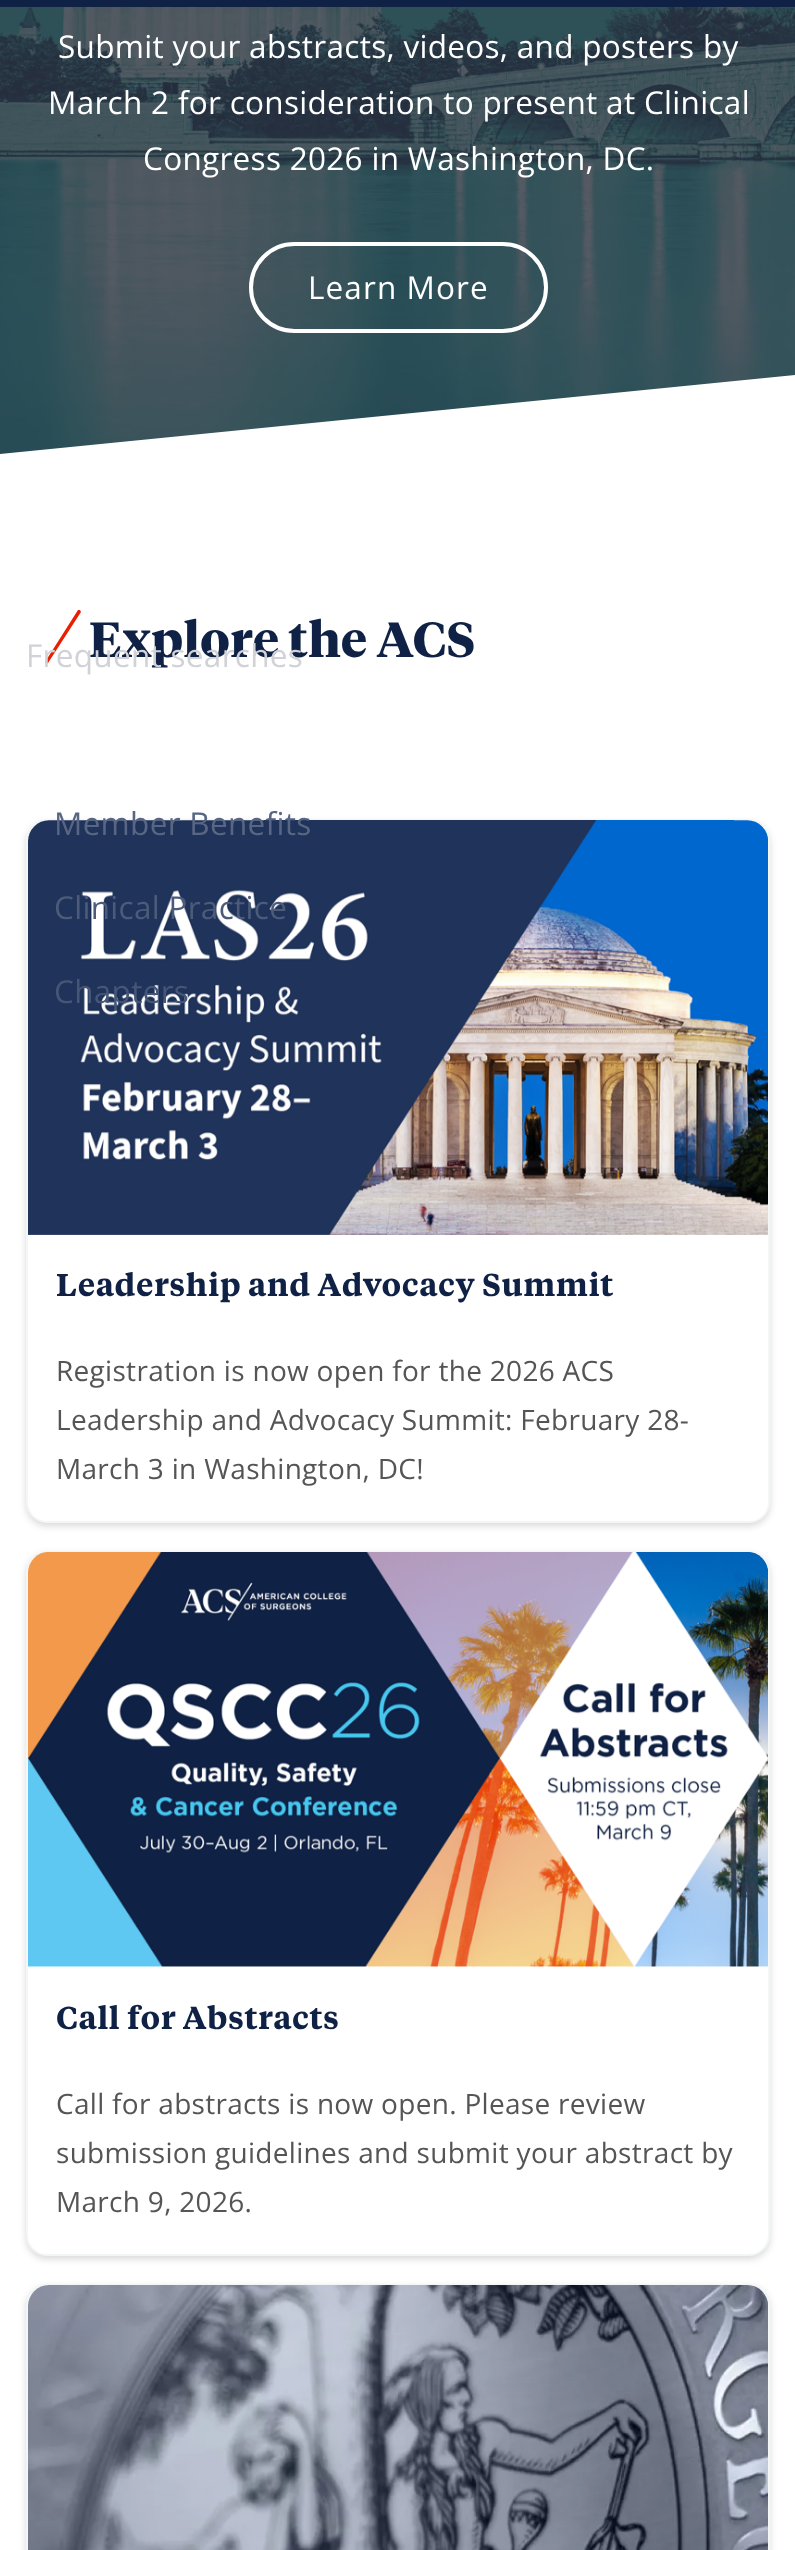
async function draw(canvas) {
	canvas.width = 795;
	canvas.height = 2550;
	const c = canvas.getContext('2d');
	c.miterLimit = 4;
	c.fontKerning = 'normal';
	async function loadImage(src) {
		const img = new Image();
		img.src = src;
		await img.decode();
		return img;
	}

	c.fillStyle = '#fff';
	c.fillRect(0, 0, 795, 2550);
	c.drawImage(await loadImage('img1.png'), 0, 7, 795, 447);
	c.letterSpacing = '0.3px';
	c.font = '31.5px Open Sans';
	for (const [text, x, y] of [
		['Submit your abstracts, videos, and posters by', 58, 58],
		['March 2 for consideration to present at Clinical', 48, 114],
		['Congress 2026 in Washington, DC.', 143, 170],
	]) {
		c.fillText(text, x, y);
	}
	c.beginPath();
	c.roundRect(251, 244, 295, 87, 43.5);
	c.strokeStyle = '#fff';
	c.lineWidth = 4;
	c.stroke();
	c.letterSpacing = '1.1px';
	c.fillText('Learn More', 308, 299);
	c.save();
	c.beginPath();
	c.rect(0, 373, 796, 82);
	c.clip();
	c.beginPath();
	c.moveTo(-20, 456);
	c.lineTo(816, 373);
	c.lineTo(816, 456);
	c.closePath();
	c.fill();
	c.restore();
	c.fillStyle = '#e91f00';
	c.beginPath();
	c.moveTo(46, 663);
	c.lineTo(45, 662);
	c.lineTo(78, 610);
	c.bezierCurveTo(78, 610, 79, 610, 80, 610);
	c.lineTo(81, 612);
	c.lineTo(48, 663);
	c.bezierCurveTo(47, 664, 46, 664, 46, 663);
	c.closePath();
	c.fill('evenodd');
	c.letterSpacing = '0.55px';
	c.font = 'bold 49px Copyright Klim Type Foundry';
	c.fillStyle = '#0f2144';
	c.fillText('Explore the ACS', 89, 657);
	c.fillStyle = '#00000026';
	c.filter = 'blur(3.5px)';
	c.beginPath();
	c.roundRect(26, 823, 744, 703, 21);
	c.fill();
	c.filter = 'none';
	c.fillStyle = '#fff';
	c.beginPath();
	c.roundRect(27, 820, 742, 702, 20);
	c.fill();
	c.strokeStyle = '#f3f6f7';
	c.lineWidth = 2;
	c.stroke();
	c.drawImage(await loadImage('img2.png'), 28, 820, 740, 415);
	c.font = '600 31.5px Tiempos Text';
	c.fillStyle = '#0f2144';
	c.fillText('Leadership and Advocacy Summit', 56, 1296);
	c.letterSpacing = '0.3px';
	c.font = '28px Open Sans';
	c.fillStyle = '#555';
	for (const [text, x, y] of [
		['Registration is now open for the 2026 ACS', 56, 1381],
		['Leadership and Advocacy Summit: February 28-', 56, 1430],
		['March 3 in Washington, DC!', 56, 1479],
	]) {
		c.fillText(text, x, y);
	}
	c.fillStyle = '#00000026';
	c.filter = 'blur(3.5px)';
	c.beginPath();
	c.roundRect(26, 1554, 744, 705, 21);
	c.fill();
	c.filter = 'none';
	c.fillStyle = '#fff';
	c.beginPath();
	c.roundRect(27, 1552, 742, 703, 20);
	c.fill();
	c.stroke();
	c.drawImage(await loadImage('img3.png'), 28, 1552, 740, 415);
	c.letterSpacing = '0.55px';
	c.font = '600 31.5px Tiempos Text';
	c.fillStyle = '#0f2144';
	c.fillText('Call for Abstracts', 56, 2029);
	c.letterSpacing = '0.3px';
	c.font = '28px Open Sans';
	c.fillStyle = '#555';
	for (const [text, x, y] of [
		['Call for abstracts is now open. Please review', 56, 2114],
		['submission guidelines and submit your abstract by', 56, 2163],
		['March 9, 2026.', 56, 2212],
	]) {
		c.fillText(text, x, y);
	}
	c.fillStyle = '#00000026';
	c.filter = 'blur(3.5px)';
	c.beginPath();
	c.roundRect(26, 2287, 744, 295, 21);
	c.fill();
	c.filter = 'none';
	c.fillStyle = '#fff';
	c.beginPath();
	c.roundRect(27, 2285, 742, 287, 20);
	c.fill();
	c.stroke();
	c.drawImage(await loadImage('img4.png'), 28, 2285, 740, 265);
	c.fillStyle = '#0f2144';
	c.fillRect(0, 0, 795, 7);
	c.font = '31.5px Open Sans';
	c.fillStyle = '#d1d2d8';
	c.fillText('Frequent searches', 26, 667);
	c.fillStyle = '#586683';
	c.fillText('Member Benefits', 54, 835);
	c.fillStyle = '#4c5b7a';
	c.fillText('Clinical Practice', 54, 919);
	c.fillStyle = '#465676';
	c.fillText('Chapters', 54, 1003);
}

draw(document.querySelector('canvas'));
